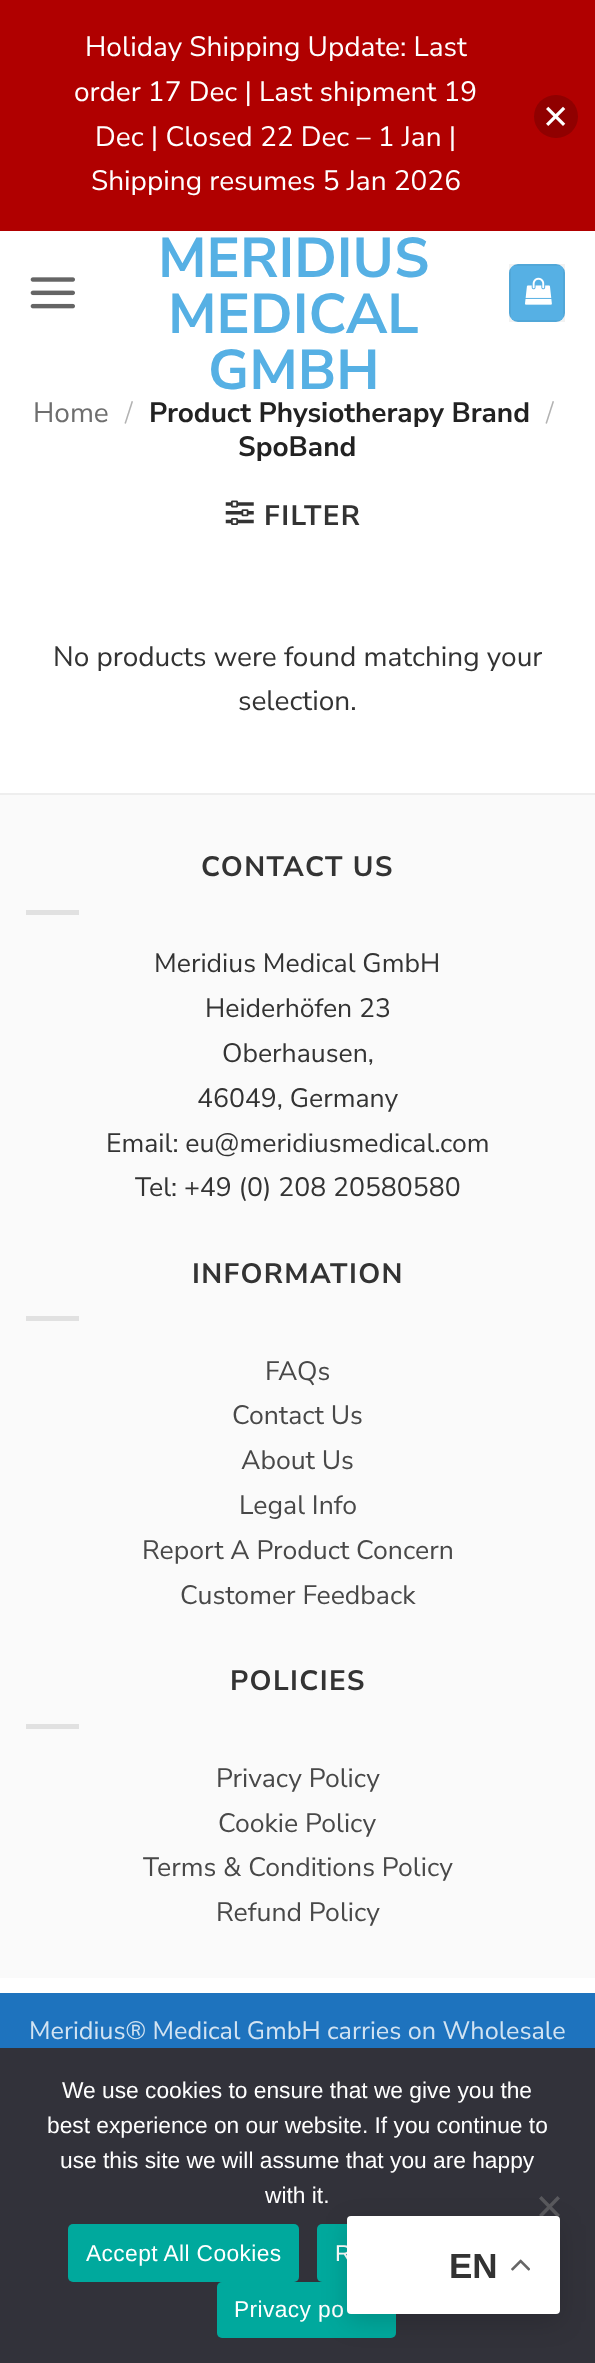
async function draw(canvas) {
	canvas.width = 595;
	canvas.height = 2363;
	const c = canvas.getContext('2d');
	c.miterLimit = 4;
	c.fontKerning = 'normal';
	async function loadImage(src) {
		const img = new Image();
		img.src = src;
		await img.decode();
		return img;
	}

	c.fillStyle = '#fff';
	c.fillRect(0, 0, 595, 2363);
	c.fillStyle = '#b00000';
	c.fillRect(0, 0, 595, 231);
	c.font = '28px Nunito Sans';
	c.fillStyle = '#fff';
	for (const [text, x, y] of [
		['Holiday Shipping Update: Last', 85, 56],
		['order 17 Dec | Last shipment 19', 74, 101],
		['Dec | Closed 22 Dec – 1 Jan |', 95, 146],
		['Shipping resumes 5 Jan 2026', 91, 190],
	]) {
		c.fillText(text, x, y);
	}
	c.fillStyle = '#900000';
	c.beginPath();
	c.roundRect(534, 95, 44, 43, 21.5);
	c.fill();
	c.drawImage(await loadImage('img1.png'), 546, 106, 20, 20);
	c.drawImage(await loadImage('img2.png'), 30, 277, 45, 32);
	c.font = 'bold 56px Nunito Sans';
	c.fillStyle = '#56b0e4';
	for (const [text, x, y] of [
		['MERIDIUS', 158, 277],
		['MEDICAL', 168, 333],
		['GMBH', 208, 389],
	]) {
		c.fillText(text, x, y);
	}
	c.beginPath();
	c.roundRect(509, 264, 56, 58, 9);
	c.fill();
	c.strokeStyle = '#0000000d';
	c.lineWidth = 2;
	c.strokeRect(510, 265, 54, 56);
	c.drawImage(await loadImage('img3.png'), 525, 277, 27, 28);
	c.font = '28px Nunito Sans';
	c.fillStyle = '#6e6e6e';
	c.fillText('Home', 33, 422);
	c.font = '300 28px Nunito Sans';
	c.fillStyle = '#b2b2b2';
	c.fillText('/', 125, 422);
	c.font = 'bold 28px Nunito Sans';
	c.fillStyle = '#222';
	c.fillText('Product Physiotherapy Brand', 149, 422);
	c.font = '300 28px Nunito Sans';
	c.fillStyle = '#b2b2b2';
	c.fillText('/', 546, 422);
	c.font = 'bold 28px Nunito Sans';
	c.fillStyle = '#222';
	c.fillText('SpoBand', 238, 456);
	c.drawImage(await loadImage('img4.png'), 225, 500, 29, 25);
	c.letterSpacing = '1.4px';
	c.fillStyle = '#333';
	c.fillText('FILTER', 264, 525);
	c.letterSpacing = '0px';
	c.font = '28px Nunito Sans';
	c.fillText('No products were found matching your', 53, 666);
	c.fillText('selection.', 238, 710);
	c.fillStyle = '#fafafa';
	c.fillRect(0, 795, 595, 1183);
	c.fillStyle = '#eee';
	c.fillRect(0, 793, 595, 2);
	c.letterSpacing = '1.4px';
	c.font = 'bold 28px Nunito Sans';
	c.fillStyle = '#333';
	c.fillText('CONTACT US', 201, 876);
	c.fillStyle = '#e1e1e1';
	c.fillRect(26, 910, 53, 5);
	c.letterSpacing = '0px';
	c.font = '26.6px Nunito Sans';
	c.fillStyle = '#333';
	for (const [text, x, y] of [
		['Meridius Medical GmbH', 154, 972],
		['Heiderhöfen 23', 205, 1017],
		['Oberhausen,', 222, 1062],
		['46049, Germany', 197, 1107],
		['Email: eu@meridiusmedical.com', 106, 1152],
		['Tel: +49 (0) 208 20580580', 135, 1196],
	]) {
		c.fillText(text, x, y);
	}
	c.letterSpacing = '1.4px';
	c.font = 'bold 28px Nunito Sans';
	c.fillText('INFORMATION', 192, 1283);
	c.fillStyle = '#e1e1e1';
	c.fillRect(26, 1316, 53, 5);
	c.letterSpacing = '0px';
	c.font = '26.6px Nunito Sans';
	c.fillStyle = '#484848';
	for (const [text, x, y] of [
		['FAQs', 265, 1380],
		['Contact Us', 232, 1424],
		['About Us', 241, 1469],
		['Legal Info', 239, 1514],
		['Report A Product Concern', 142, 1559],
		['Customer Feedback', 180, 1604],
	]) {
		c.fillText(text, x, y);
	}
	c.letterSpacing = '1.4px';
	c.font = 'bold 28px Nunito Sans';
	c.fillStyle = '#333';
	c.fillText('POLICIES', 230, 1690);
	c.fillStyle = '#e1e1e1';
	c.fillRect(26, 1724, 53, 5);
	c.letterSpacing = '0px';
	c.font = '26.6px Nunito Sans';
	c.fillStyle = '#484848';
	for (const [text, x, y] of [
		['Privacy Policy', 216, 1787],
		['Cookie Policy', 218, 1832],
		['Terms & Conditions Policy', 143, 1876],
		['Refund Policy', 216, 1921],
	]) {
		c.fillText(text, x, y);
	}
	c.fillStyle = '#1e73be';
	c.fillRect(0, 1993, 595, 55);
	c.font = '25.2px Nunito Sans';
	c.fillStyle = '#d2e3f2';
	c.fillText('Meridius® Medical GmbH carries on Wholesale', 29, 2039);
	c.fillStyle = '#32323a';
	c.fillRect(0, 2048, 595, 315);
	c.font = '22.75px Liberation Sans';
	c.fillStyle = '#fff';
	for (const [text, x, y] of [
		['We use cookies to ensure that we give you the', 62, 2098],
		['best experience on our website. If you continue to', 47, 2133],
		['use this site we will assume that you are happy', 60, 2168],
		['with it.', 265, 2203],
	]) {
		c.fillText(text, x, y);
	}
	c.fillStyle = '#59595d';
	c.beginPath();
	c.moveTo(557.5, 2196);
	c.lineTo(560, 2198.5);
	c.lineTo(541.5, 2217.5);
	c.lineTo(539, 2215);
	c.closePath();
	c.fill();
	c.beginPath();
	c.moveTo(539, 2198.5);
	c.lineTo(541.5, 2196);
	c.lineTo(560, 2215);
	c.lineTo(557.5, 2217.5);
	c.closePath();
	c.fill();
	c.fillStyle = '#00a99d';
	c.beginPath();
	c.roundRect(68, 2224, 231, 58, 5);
	c.fill();
	c.letterSpacing = '0.4px';
	c.fillStyle = '#fff';
	c.fillText('Accept All Cookies', 86, 2261);
	c.fillStyle = '#00a99d';
	c.beginPath();
	c.roundRect(317, 2224, 227, 58, 5);
	c.fill();
	c.fillStyle = '#fff';
	c.fillText('R', 335, 2261);
	c.fillStyle = '#00a99d';
	c.beginPath();
	c.roundRect(217, 2282, 179, 56, 5);
	c.fill();
	c.fillStyle = '#fff';
	c.fillText('Privacy po', 234, 2317);
	c.fillStyle = '#00000026';
	c.filter = 'blur(13px)';
	c.beginPath();
	c.roundRect(347, 2224, 213, 98, 4);
	c.fill();
	c.filter = 'none';
	c.fillStyle = '#fff';
	c.beginPath();
	c.roundRect(347, 2216, 213, 98, 4);
	c.fill();
	c.letterSpacing = '0px';
	c.font = 'bold 35px Liberation Sans';
	c.fillStyle = '#333';
	c.fillText('EN', 449, 2278);
	c.drawImage(await loadImage('img5.png'), 511, 2259, 19, 12);
}

draw(document.querySelector('canvas'));
